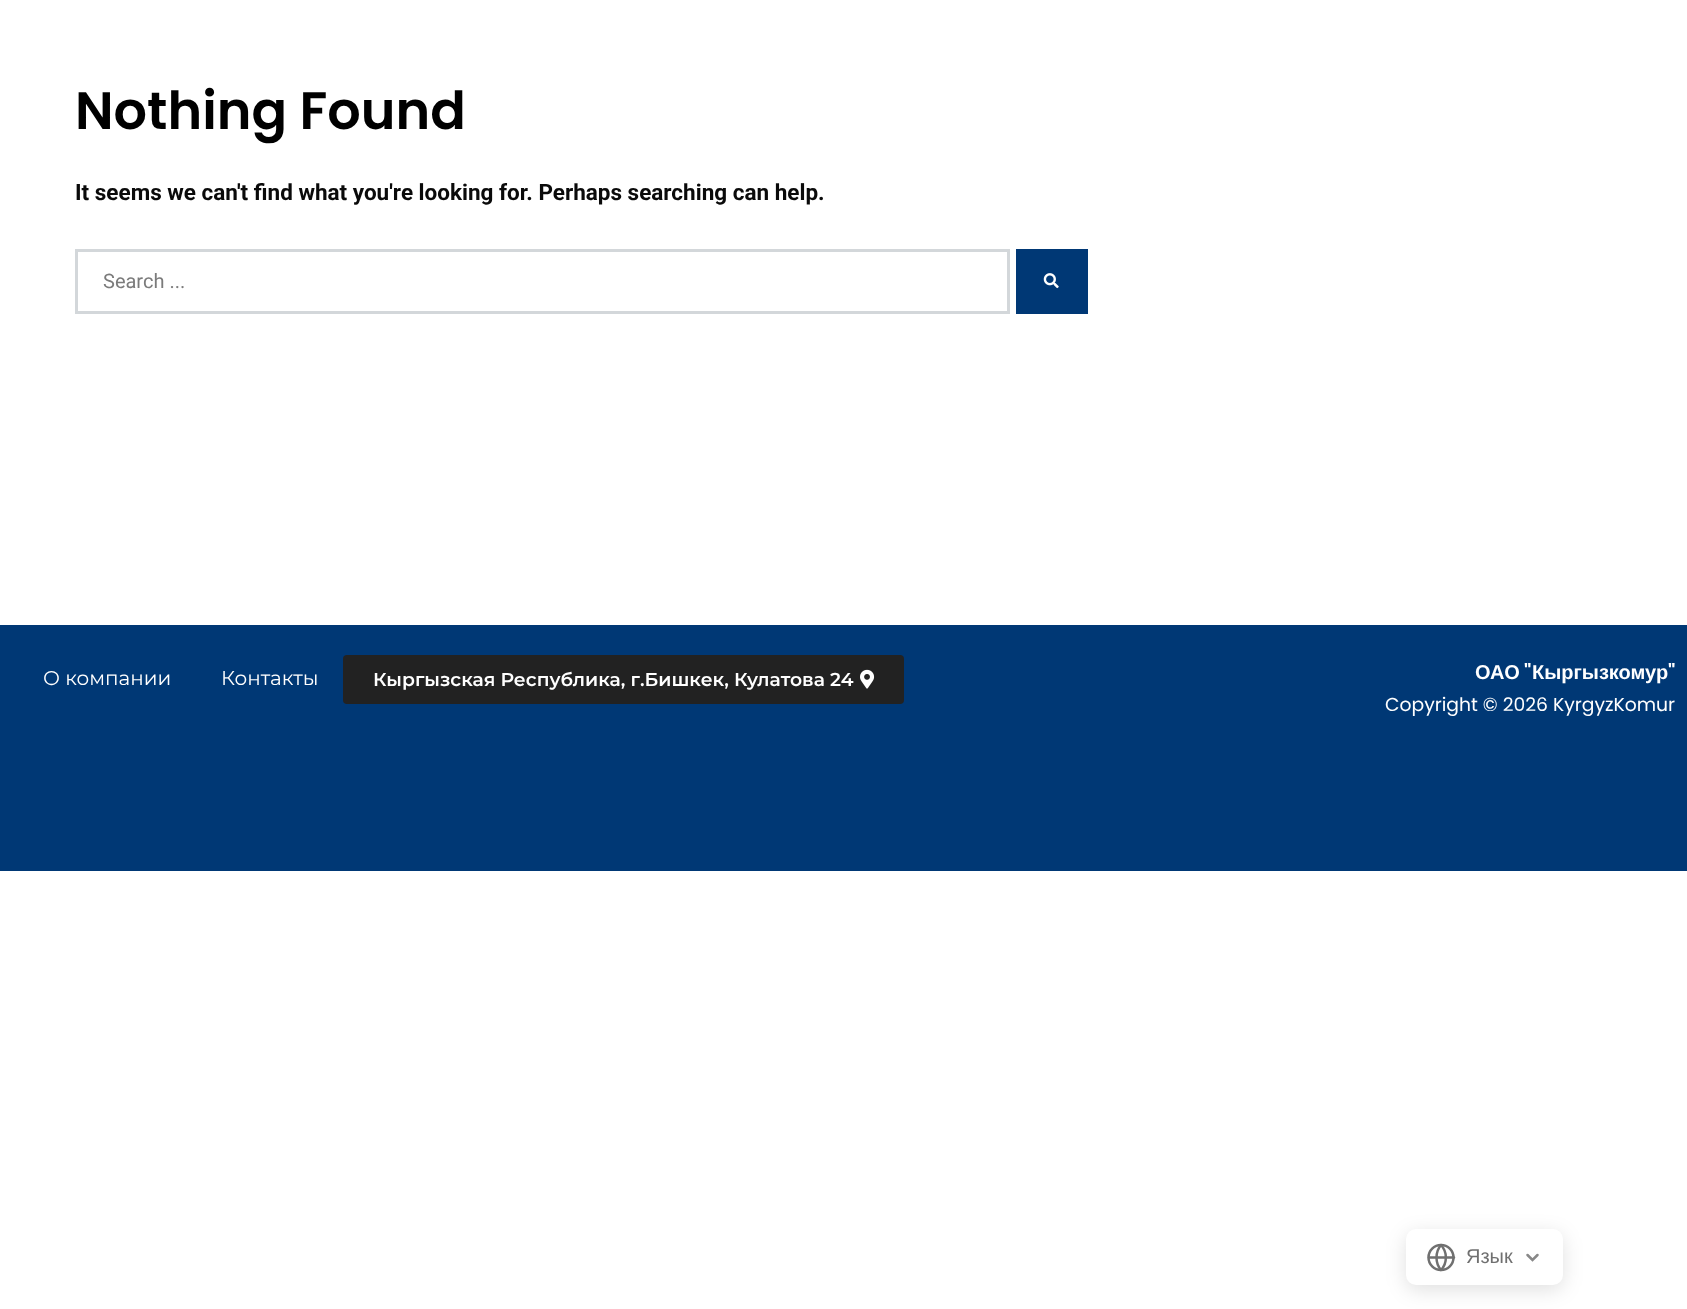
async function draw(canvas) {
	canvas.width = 1687;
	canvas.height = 1309;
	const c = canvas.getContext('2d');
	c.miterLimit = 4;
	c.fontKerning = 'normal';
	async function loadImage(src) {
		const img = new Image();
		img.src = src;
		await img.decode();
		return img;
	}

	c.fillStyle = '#fff';
	c.fillRect(0, 0, 1687, 1309);
	c.font = '600 52.5px Poppins';
	c.fillStyle = '#000';
	c.fillText('Nothing Found', 75, 129);
	c.font = 'bold 22.5px Roboto';
	c.fillStyle = '#0a0a0a';
	c.fillText('It seems we can\'t find what you\'re looking for. Perhaps searching can help.', 75, 200);
	c.strokeStyle = '#d3d7da';
	c.lineWidth = 3;
	c.strokeRect(76.5, 250.5, 932, 62);
	c.font = '20px Roboto';
	c.fillStyle = '#7b7b7b';
	c.fillText('Search ...', 103, 288);
	c.fillStyle = '#003875';
	c.fillRect(1016, 249, 72, 65);
	c.drawImage(await loadImage('img1.png'), 1043, 273, 16, 16);
	c.fillRect(0, 625, 1687, 246);
	c.font = '20px Montserrat';
	c.fillStyle = '#fff';
	c.fillText('О компании', 43, 685);
	c.fillText('Контакты', 221, 685);
	c.fillStyle = '#222';
	c.beginPath();
	c.roundRect(343, 655, 561, 49, 4);
	c.fill();
	c.font = '600 18.75px Montserrat';
	c.fillStyle = '#fff';
	c.fillText('Кыргызская Республика, г.Бишкек, Кулатова 24', 373, 686);
	c.drawImage(await loadImage('img2.png'), 860, 669, 15, 20);
	c.font = 'bold 20px Liberation Sans';
	c.fillText('ОАО', 1475, 679);
	c.font = '600 20px Poppins';
	c.fillText('"', 1524, 679);
	c.font = 'bold 20px Liberation Sans';
	c.fillText('Кыргызкомур', 1532, 679);
	c.font = '600 20px Poppins';
	c.fillText('"', 1668, 679);
	c.font = '18.75px Poppins';
	c.fillText('Copyright © 2026 KyrgyzKomur', 1385, 711);
	c.fillStyle = '#0000001f';
	c.filter = 'blur(10px)';
	c.beginPath();
	c.roundRect(1406, 1234, 157, 56, 10);
	c.fill();
	c.filter = 'none';
	c.fillStyle = '#fff';
	c.beginPath();
	c.roundRect(1406, 1229, 157, 56, 10);
	c.fill();
	c.beginPath();
	c.arc(1441, 1257.5, 12.5, 0, 2 * Math.PI);
	c.strokeStyle = '#707070';
	c.lineWidth = 2.5;
	c.stroke();
	c.beginPath();
	c.moveTo(1429, 1257.5);
	c.lineTo(1454, 1257.5);
	c.moveTo(1441, 1245);
	c.bezierCurveTo(1447.5, 1252, 1447.5, 1263, 1441, 1270);
	c.bezierCurveTo(1435, 1263, 1435, 1252, 1441, 1245);
	c.closePath();
	c.lineCap = 'round';
	c.lineJoin = 'round';
	c.stroke();
	c.font = '20px Liberation Sans';
	c.fillStyle = '#707070';
	c.fillText('Язык', 1466, 1263);
	c.beginPath();
	c.moveTo(1527.5, 1255);
	c.lineTo(1532.5, 1260);
	c.lineTo(1537.5, 1255);
	c.strokeStyle = '#888';
	c.lineJoin = 'miter';
	c.stroke();
}

draw(document.querySelector('canvas'));
